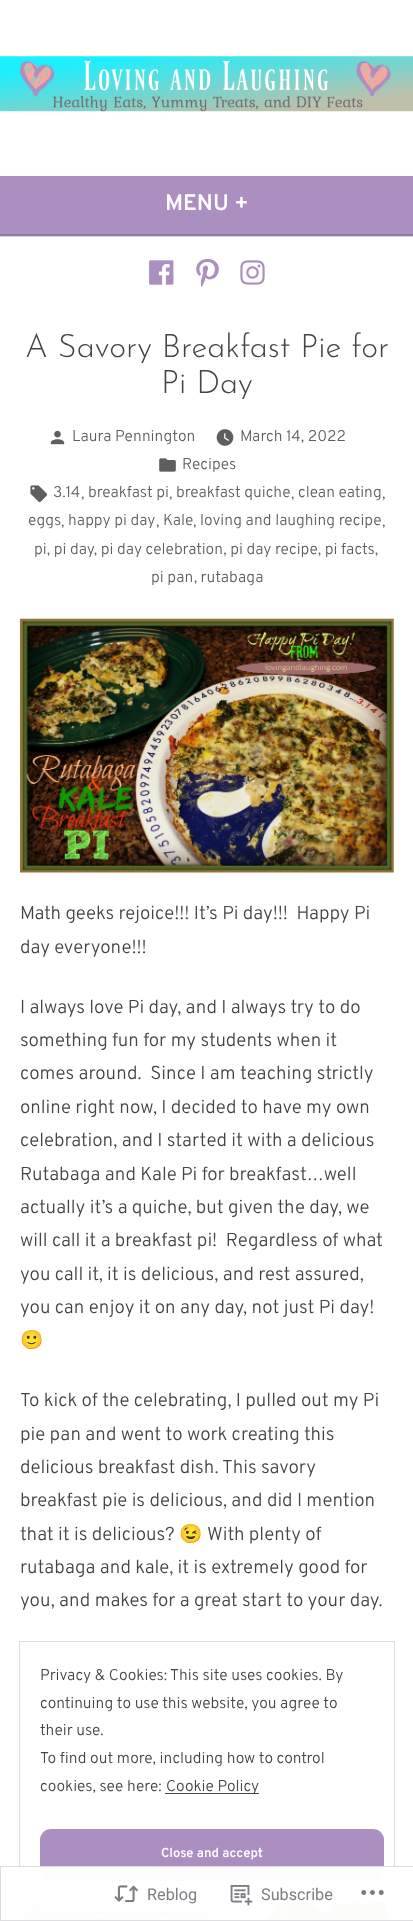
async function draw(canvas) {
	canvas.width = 413;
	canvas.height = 1921;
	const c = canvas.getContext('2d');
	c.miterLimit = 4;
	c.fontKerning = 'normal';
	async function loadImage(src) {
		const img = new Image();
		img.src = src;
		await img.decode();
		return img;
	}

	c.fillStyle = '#fff';
	c.fillRect(0, 0, 413, 1921);
	c.fillStyle = '#d9d9d9';
	c.fillRect(0, 236, 413, 1);
	c.drawImage(await loadImage('img1.png'), 0, 56, 413, 56);
	c.fillStyle = '#ab8fc0';
	c.fillRect(0, 176, 413, 58);
	c.fillStyle = '#917aa3';
	c.fillRect(0, 234, 413, 2);
	c.font = '600 22.5px Overpass';
	c.fillStyle = '#fff';
	c.fillText('MENU +', 165, 210);
	c.drawImage(await loadImage('img2.png'), 149, 260, 25, 25);
	c.drawImage(await loadImage('img3.png'), 196, 259, 23, 28);
	c.drawImage(await loadImage('img4.png'), 240, 260, 25, 25);
	c.font = '300 32.4px Josefin Sans';
	c.fillStyle = '#444';
	c.fillText('A Savory Breakfast Pie for', 25, 357);
	c.fillText('Pi Day', 161, 393);
	c.drawImage(await loadImage('img5.png'), 50, 430, 15, 15);
	c.font = '300 15.6px Overpass';
	c.fillStyle = '#5e5e5e';
	c.fillText('Laura Pennington', 72, 441);
	c.drawImage(await loadImage('img6.png'), 216, 429, 18, 17);
	c.fillText('March 14, 2022', 240, 441);
	c.drawImage(await loadImage('img7.png'), 159, 458, 17, 14);
	c.fillText('Recipes', 182, 469);
	c.drawImage(await loadImage('img8.png'), 30, 485, 18, 18);
	for (const [text, x, y] of [
		['3.14', 53, 497],
		[',', 81, 498],
		['breakfast pi', 88, 497],
		[',', 169, 498],
		['breakfast quiche', 176, 497],
		[',', 291, 498],
		['clean eating', 298, 497],
		[',', 382, 498],
		['eggs', 28, 525],
		[',', 61, 526],
		['happy pi day', 68, 525],
		[',', 156, 526],
		['Kale', 163, 525],
		[',', 193, 526],
		['loving and laughing recipe', 200, 525],
		[',', 382, 526],
		['pi, pi day, pi day celebration, pi day recipe, pi facts,', 34, 554],
		['pi pan, rutabaga', 151, 582],
	]) {
		c.fillText(text, x, y);
	}
	c.drawImage(await loadImage('img9.png'), 20, 618, 374, 255);
	c.font = '300 18.75px Overpass';
	c.fillStyle = '#444';
	for (const [text, x, y] of [
		['Math geeks rejoice!!! It’s Pi day!!!  Happy Pi', 20, 919],
		['day everyone!!!', 20, 953],
		['I always love Pi day, and I always try to do', 20, 1013],
		['something fun for my students when it', 20, 1046],
		['comes around.  Since I am teaching strictly', 20, 1079],
		['online right now, I decided to have my own', 20, 1113],
		['celebration, and I started it with a delicious', 20, 1146],
		['Rutabaga and Kale Pi for breakfast…well', 20, 1180],
		['actually it’s a quiche, but given the day, we', 20, 1213],
		['will call it a breakfast pi!  Regardless of what', 20, 1246],
		['you call it, it is delicious, and rest assured,', 20, 1280],
		['you can enjoy it on any day, not just Pi day!', 20, 1313],
	]) {
		c.fillText(text, x, y);
	}
	c.font = '18.75px Noto Color Emoji';
	c.fillText('🙂', 20, 1346);
	c.font = '300 18.75px Overpass';
	for (const [text, x, y] of [
		['To kick of the celebrating, I pulled out my Pi', 20, 1406],
		['pie pan and went to work creating this', 20, 1440],
		['delicious breakfast dish. This savory', 20, 1473],
		['breakfast pie is delicious, and did I mention', 20, 1506],
		['that it is delicious?', 20, 1540],
	]) {
		c.fillText(text, x, y);
	}
	c.font = '18.75px Noto Color Emoji';
	c.fillText('😉', 179, 1540);
	c.font = '300 18.75px Overpass';
	for (const [text, x, y] of [
		['With plenty of', 207, 1540],
		['rutabaga and kale, it is extremely good for', 20, 1573],
		['you, and makes for a great start to your day.', 20, 1606],
	]) {
		c.fillText(text, x, y);
	}
	c.drawImage(await loadImage('img10.png'), 20, 1903, 373, 18);
	c.strokeStyle = '#ddd';
	c.strokeRect(19.5, 1641.5, 375, 261);
	c.font = '300 15.6px Overpass';
	for (const [text, x, y] of [
		['Privacy & Cookies: This site uses cookies. By', 40, 1680],
		['continuing to use this website, you agree to', 40, 1708],
		['their use.', 40, 1735],
		['To find out more, including how to control', 40, 1763],
		['cookies, see here:', 40, 1791],
	]) {
		c.fillText(text, x, y);
	}
	c.fillRect(165, 1793, 94, 1);
	c.fillText('Cookie Policy', 166, 1791);
	c.fillStyle = '#ab8fc0';
	c.beginPath();
	c.roundRect(40, 1829, 344, 52, 11);
	c.fill();
	c.font = '600 13px Overpass';
	c.fillStyle = '#fff';
	c.fillText('Close and accept', 161, 1857);
	c.fillStyle = '#fffffffa';
	c.fillRect(19, 1866, 376, 55);
	c.strokeStyle = '#dcdcdefa';
	c.strokeRect(0.5, 1866.5, 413, 54);
	c.drawImage(await loadImage('img11.png'), 114, 1885, 25, 18);
	c.font = '16.25px Roboto';
	c.fillStyle = '#7b7f84';
	c.fillText('Reblog', 147, 1900);
	c.drawImage(await loadImage('img12.png'), 230, 1885, 23, 21);
	c.fillText('Subscribe', 261, 1900);
	c.drawImage(await loadImage('img13.png'), 361, 1890, 23, 5);
}

draw(document.querySelector('canvas'));
